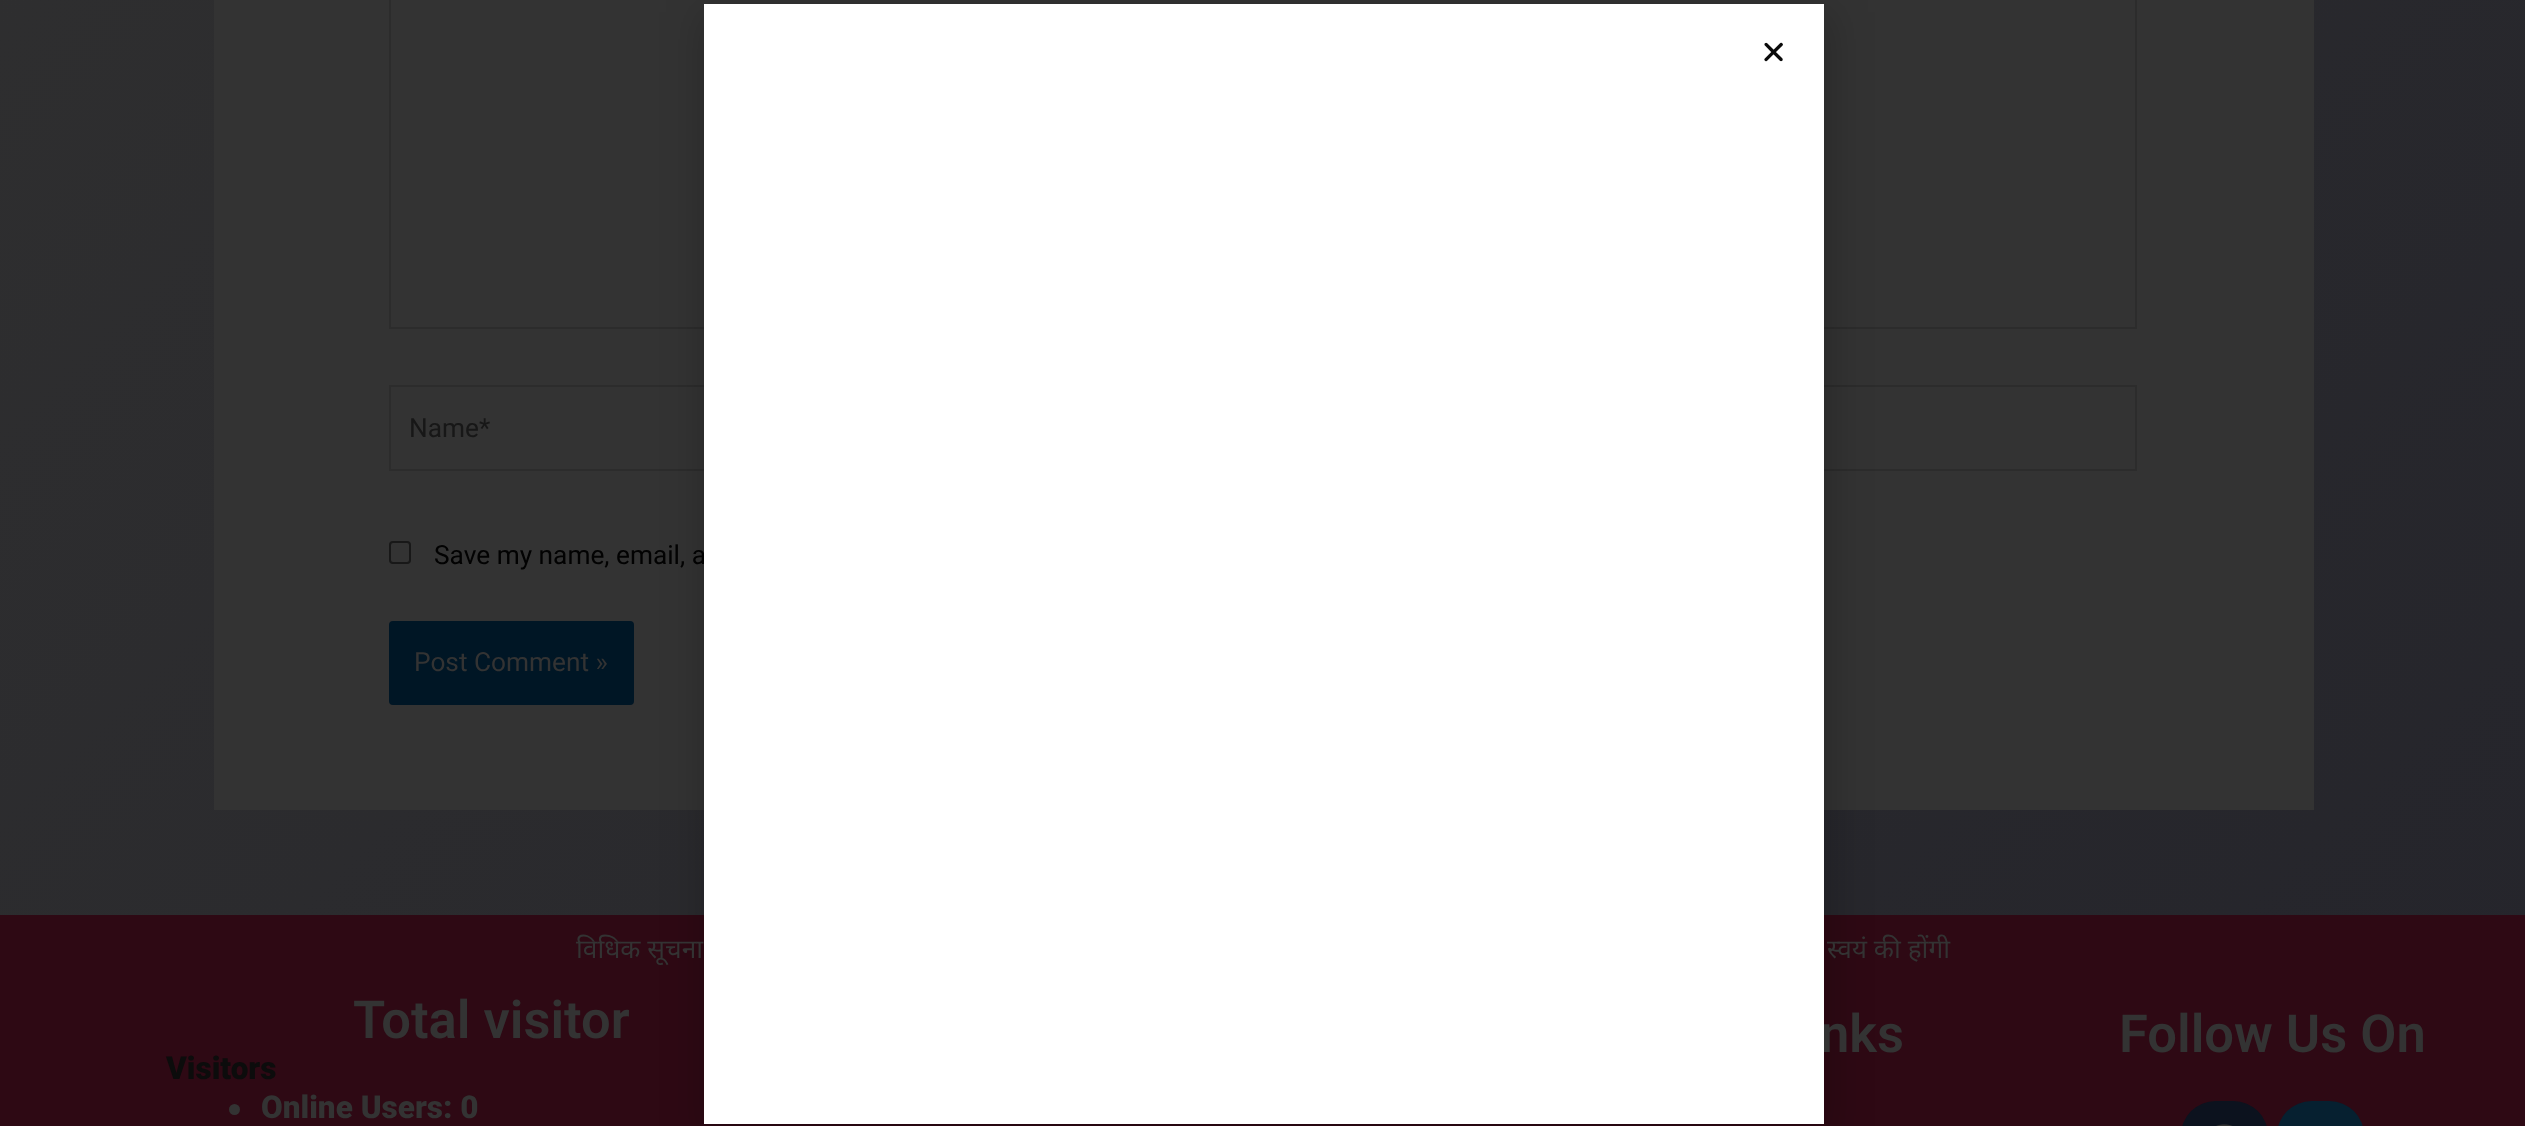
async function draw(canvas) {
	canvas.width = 2525;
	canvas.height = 1126;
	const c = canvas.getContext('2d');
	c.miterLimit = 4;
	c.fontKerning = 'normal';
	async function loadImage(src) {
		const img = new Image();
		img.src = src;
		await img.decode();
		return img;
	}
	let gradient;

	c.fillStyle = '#fff';
	c.fillRect(0, 0, 2525, 1126);
	gradient = c.createLinearGradient(-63, -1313, 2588, 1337);
	gradient.addColorStop(0, '#011d2d');
	gradient.addColorStop(0.12, '#303030');
	gradient.addColorStop(1, '#24242b');
	c.fillStyle = gradient;
	c.fillRect(0, 0, 2525, 915);
	c.fillStyle = '#333';
	c.fillRect(214, 0, 2100, 810);
	c.strokeStyle = '#2c2c2c';
	c.lineWidth = 2;
	c.strokeRect(390, -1, 1746, 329);
	c.strokeRect(390, 386, 533, 84);
	c.strokeRect(1602, 386, 534, 84);
	c.fillStyle = '#2e0914';
	c.fillRect(0, 915, 2525, 211);
	c.fillStyle = '#00000033';
	c.filter = 'blur(20px)';
	c.beginPath();
	c.rect(702, 12, 1130, 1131);
	c.fill();
	c.filter = 'none';
	c.font = '26.25px Roboto';
	c.fillStyle = '#020202';
	c.fillText('Save my name, email, a', 434, 564);
	c.font = '600 52.5px Roboto';
	c.fillStyle = '#333';
	c.fillText('nks', 1820, 1052);
	c.fillStyle = '#fff';
	c.fillRect(704, 4, 1120, 1120);
	c.drawImage(await loadImage('img1.png'), 1764, 42, 19, 20);
	c.font = '26.25px Roboto';
	c.fillStyle = '#171717';
	c.fillText('Name*', 409, 437);
	c.beginPath();
	c.roundRect(390, 542, 20, 21, 3);
	c.strokeStyle = '#181818';
	c.stroke();
	c.fillStyle = '#001625';
	c.beginPath();
	c.roundRect(389, 621, 245, 84, 4);
	c.fill();
	c.fillStyle = '#333';
	c.fillText('Post Comment »', 414, 671);
	c.font = '26.25px Noto Sans';
	c.fillText('विधिक सूचना', 576, 958);
	c.fillText('स्वयं की होंगी', 1827, 958);
	c.font = '600 52.5px Roboto';
	c.fillText('Total visitor', 353, 1038);
	c.font = '900 31.5px Roboto';
	c.fillStyle = '#0c0c0c';
	c.fillText('Visitors', 166, 1079);
	c.fillStyle = '#333';
	c.beginPath();
	c.arc(234.5, 1109.5, 5.5, 0, 2 * Math.PI);
	c.fill();
	c.fillText('Online Users: 0', 261, 1118);
	c.font = '600 52.5px Roboto';
	c.fillText('Follow Us On', 2119, 1052);
	c.fillStyle = '#0c121e';
	c.beginPath();
	c.roundRect(2181, 1101, 87, 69, 43.5);
	c.fill();
	c.drawImage(await loadImage('img2.png'), 2216, 1124, 17, 2);
	c.fillStyle = '#062030';
	c.beginPath();
	c.roundRect(2277, 1101, 87, 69, 43.5);
	c.fill();
}

draw(document.querySelector('canvas'));
